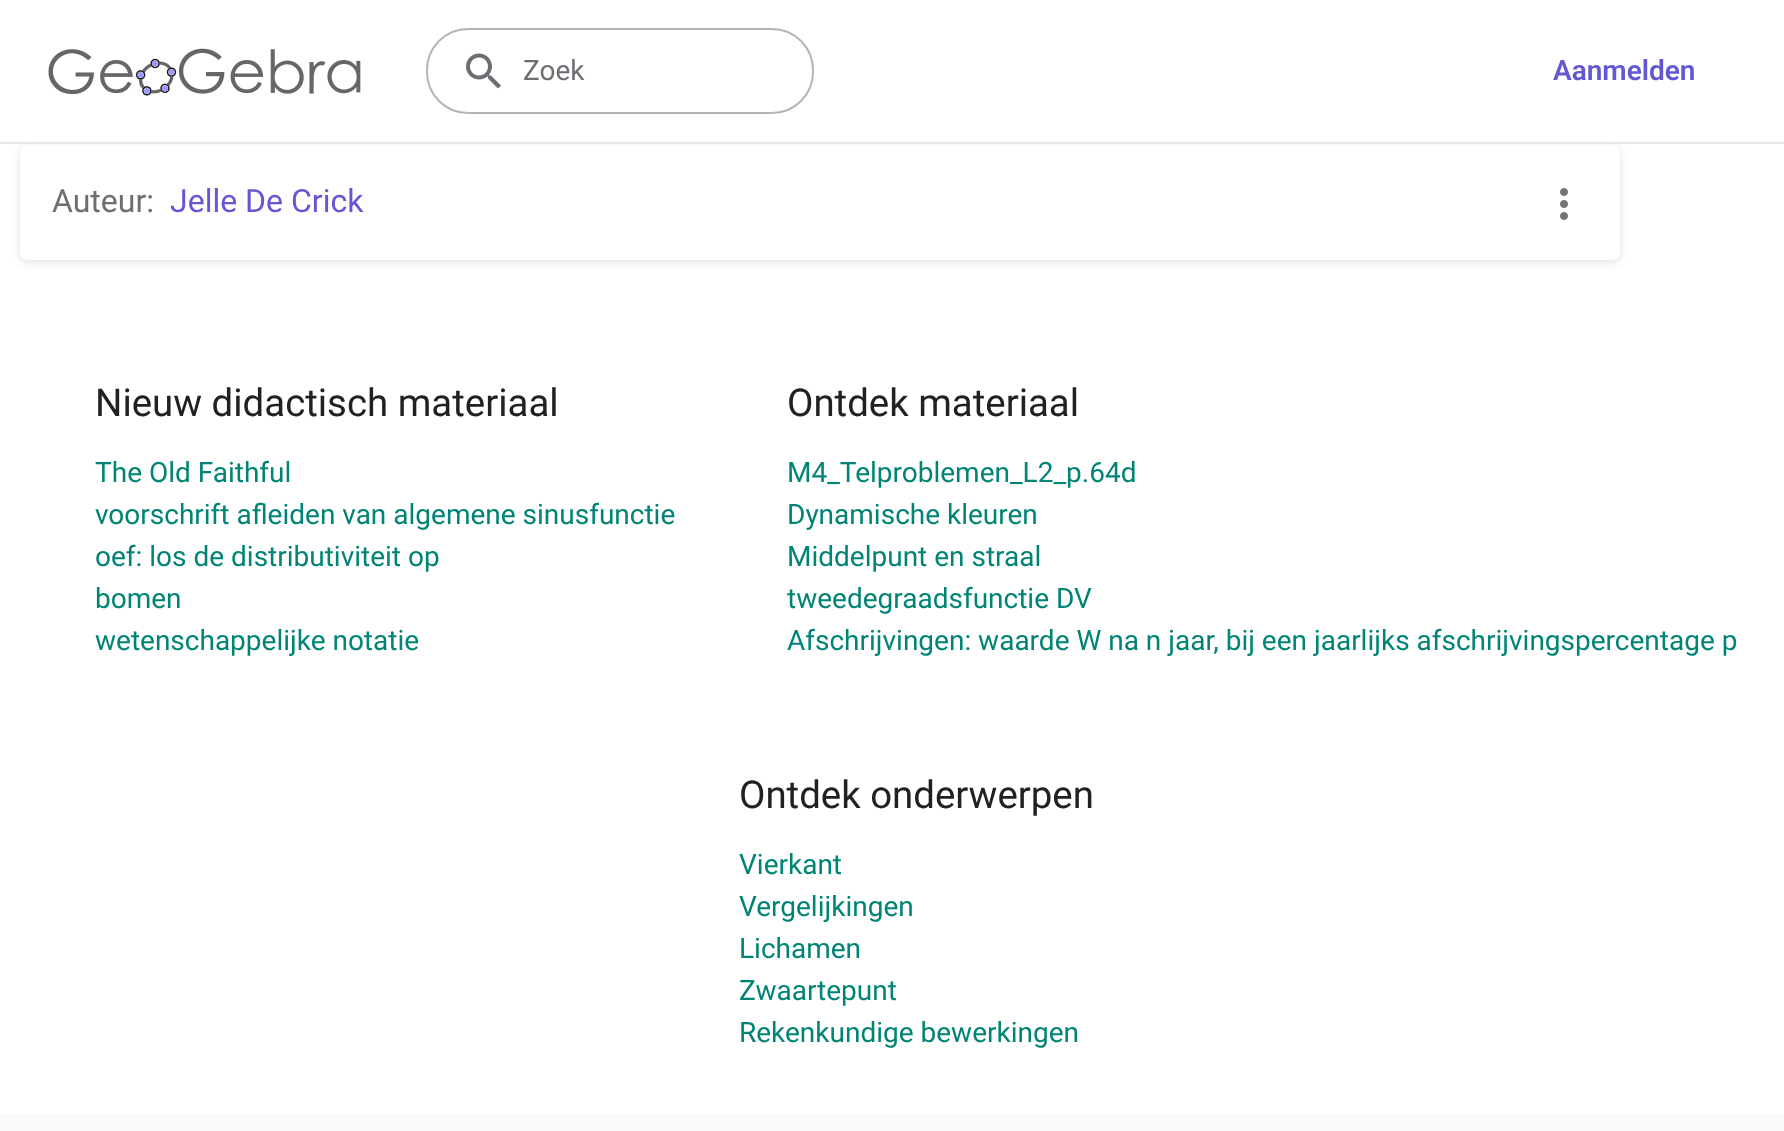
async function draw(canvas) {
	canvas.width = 1784;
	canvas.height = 1131;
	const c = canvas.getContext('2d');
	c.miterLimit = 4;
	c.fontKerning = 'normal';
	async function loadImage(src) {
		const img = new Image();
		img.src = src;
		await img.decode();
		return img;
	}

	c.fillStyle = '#fff';
	c.fillRect(0, 0, 1784, 1131);
	c.fillStyle = '#1c1c1f24';
	c.filter = 'blur(4px)';
	c.beginPath();
	c.roundRect(20, 148, 1600, 114, 8);
	c.fill();
	c.filter = 'none';
	c.fillStyle = '#e6e6eb';
	c.fillRect(0, 142, 1784, 2);
	c.drawImage(await loadImage('img1.png'), 48, 48, 313, 48);
	c.beginPath();
	c.roundRect(427, 29, 386, 84, 41);
	c.strokeStyle = '#b4b3ba';
	c.lineWidth = 2;
	c.stroke();
	c.drawImage(await loadImage('img2.png'), 466, 53, 35, 36);
	c.font = '28px Roboto';
	c.fillStyle = '#6e6d73';
	c.fillText('Zoek', 523, 80);
	c.font = '600 28px Roboto';
	c.fillStyle = '#6557d2';
	c.fillText('Aanmelden', 1553, 80);
	c.fillStyle = '#fff';
	c.beginPath();
	c.roundRect(20, 146, 1600, 114, 8);
	c.fill();
	c.font = '32px Roboto';
	c.fillStyle = '#6e6d73';
	c.fillText('Auteur:', 52, 212);
	c.fillStyle = '#6557d2';
	c.fillText('Jelle De Crick', 170, 212);
	c.drawImage(await loadImage('img3.png'), 1560, 188, 8, 32);
	c.font = '38.4px Roboto';
	c.fillStyle = '#212121';
	c.fillText('Nieuw didactisch materiaal', 95, 416);
	c.font = '28px Roboto';
	c.fillStyle = '#008475';
	for (const [text, x, y] of [
		['The Old Faithful', 95, 482],
		['voorschrift afleiden van algemene sinusfunctie', 95, 524],
		['oef: los de distributiviteit op', 95, 566],
		['bomen', 95, 608],
		['wetenschappelijke notatie', 95, 650],
	]) {
		c.fillText(text, x, y);
	}
	c.font = '38.4px Roboto';
	c.fillStyle = '#212121';
	c.fillText('Ontdek materiaal', 787, 416);
	c.font = '28px Roboto';
	c.fillStyle = '#008475';
	for (const [text, x, y] of [
		['M4_Telproblemen_L2_p.64d', 787, 482],
		['Dynamische kleuren', 787, 524],
		['Middelpunt en straal', 787, 566],
		['tweedegraadsfunctie DV', 787, 608],
		['Afschrijvingen: waarde W na n jaar, bij een jaarlijks afschrijvingspercentage p', 787, 650],
	]) {
		c.fillText(text, x, y);
	}
	c.font = '38.4px Roboto';
	c.fillStyle = '#212121';
	c.fillText('Ontdek onderwerpen', 739, 808);
	c.font = '28px Roboto';
	c.fillStyle = '#008475';
	for (const [text, x, y] of [
		['Vierkant', 739, 874],
		['Vergelijkingen', 739, 916],
		['Lichamen', 739, 958],
		['Zwaartepunt', 739, 1000],
		['Rekenkundige bewerkingen', 739, 1042],
	]) {
		c.fillText(text, x, y);
	}
	c.fillStyle = '#fafafc';
	c.fillRect(0, 1114, 1784, 17);
}

draw(document.querySelector('canvas'));
